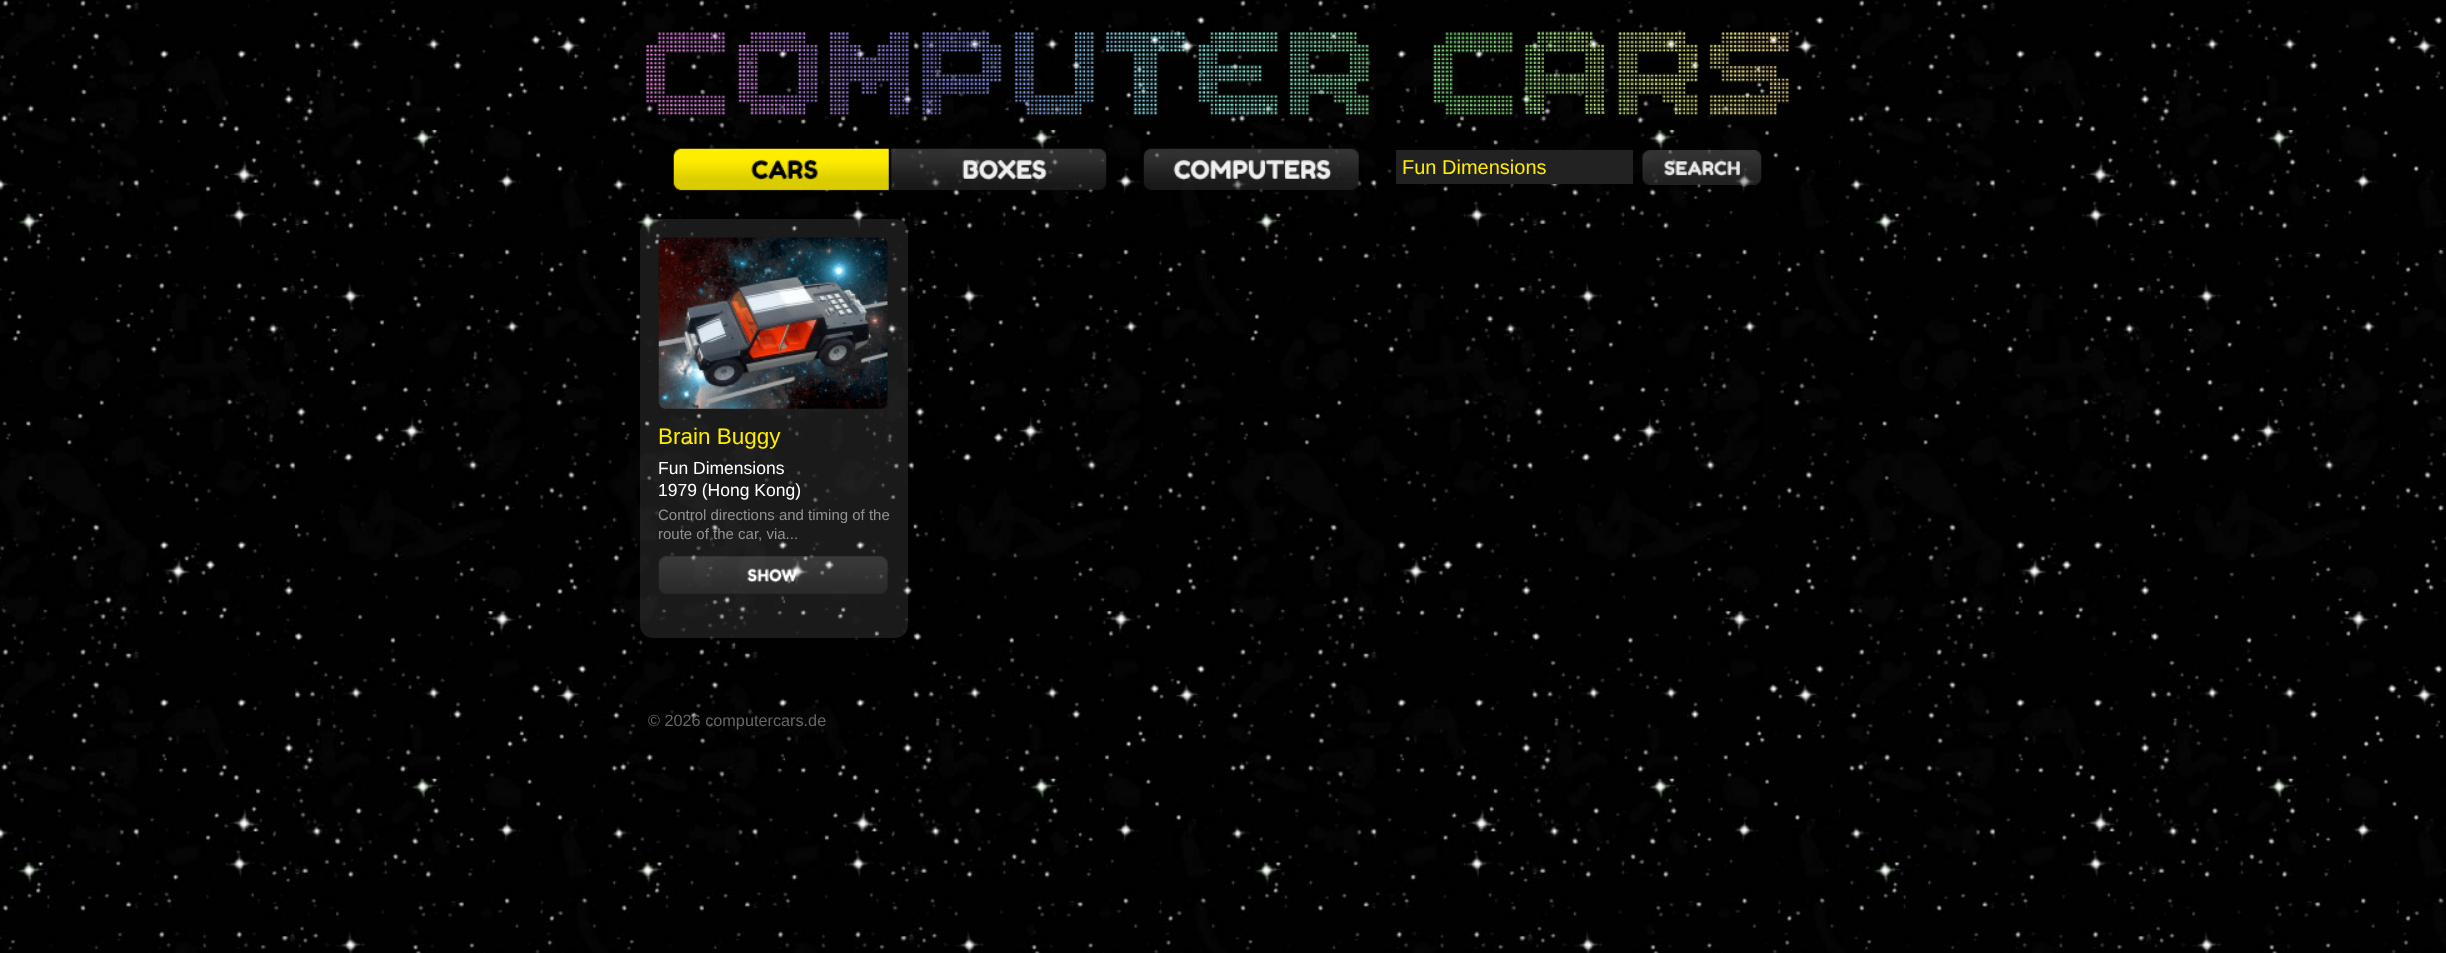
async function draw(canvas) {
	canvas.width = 2446;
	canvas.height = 953;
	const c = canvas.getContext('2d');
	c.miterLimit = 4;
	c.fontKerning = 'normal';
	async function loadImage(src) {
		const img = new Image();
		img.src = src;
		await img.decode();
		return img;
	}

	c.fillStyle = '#fff';
	c.fillRect(0, 0, 2446, 953);
	c.drawImage(await loadImage('img1.png'), 0, 0, 2446, 953);
	c.drawImage(await loadImage('img2.png'), 646, 31, 1143, 85);
	c.drawImage(await loadImage('img3.png'), 673, 148, 216, 43);
	c.drawImage(await loadImage('img4.png'), 891, 148, 216, 43);
	c.drawImage(await loadImage('img5.png'), 1143, 148, 216, 42);
	c.fillStyle = '#222';
	c.fillRect(1396, 150, 237, 34);
	c.font = '20px Liberation Sans';
	c.fillStyle = '#ffed00';
	c.fillText('Fun Dimensions', 1402, 174);
	c.drawImage(await loadImage('img6.png'), 1642, 150, 120, 35);
	c.fillStyle = '#ffffff1a';
	c.beginPath();
	c.roundRect(640, 219, 268, 419, 13);
	c.fill();
	c.drawImage(await loadImage('img7.png'), 658, 237, 230, 172);
	c.font = '22.5px Liberation Sans';
	c.fillStyle = '#ffed00';
	c.fillText('Brain Buggy', 658, 444);
	c.font = '17.5px Liberation Sans';
	c.fillStyle = '#fff';
	c.fillText('Fun Dimensions', 658, 474);
	c.fillText('1979 (Hong Kong)', 658, 496);
	c.font = '15px Liberation Sans';
	c.fillStyle = '#929292';
	c.fillText('Control directions and timing of the', 658, 520);
	c.fillText('route of the car, via...', 658, 539);
	c.drawImage(await loadImage('img8.png'), 658, 556, 230, 38);
	c.font = '16.25px Liberation Sans';
	c.fillStyle = '#666';
	c.fillText('© 2026 computercars.de', 648, 726);
}

draw(document.querySelector('canvas'));
